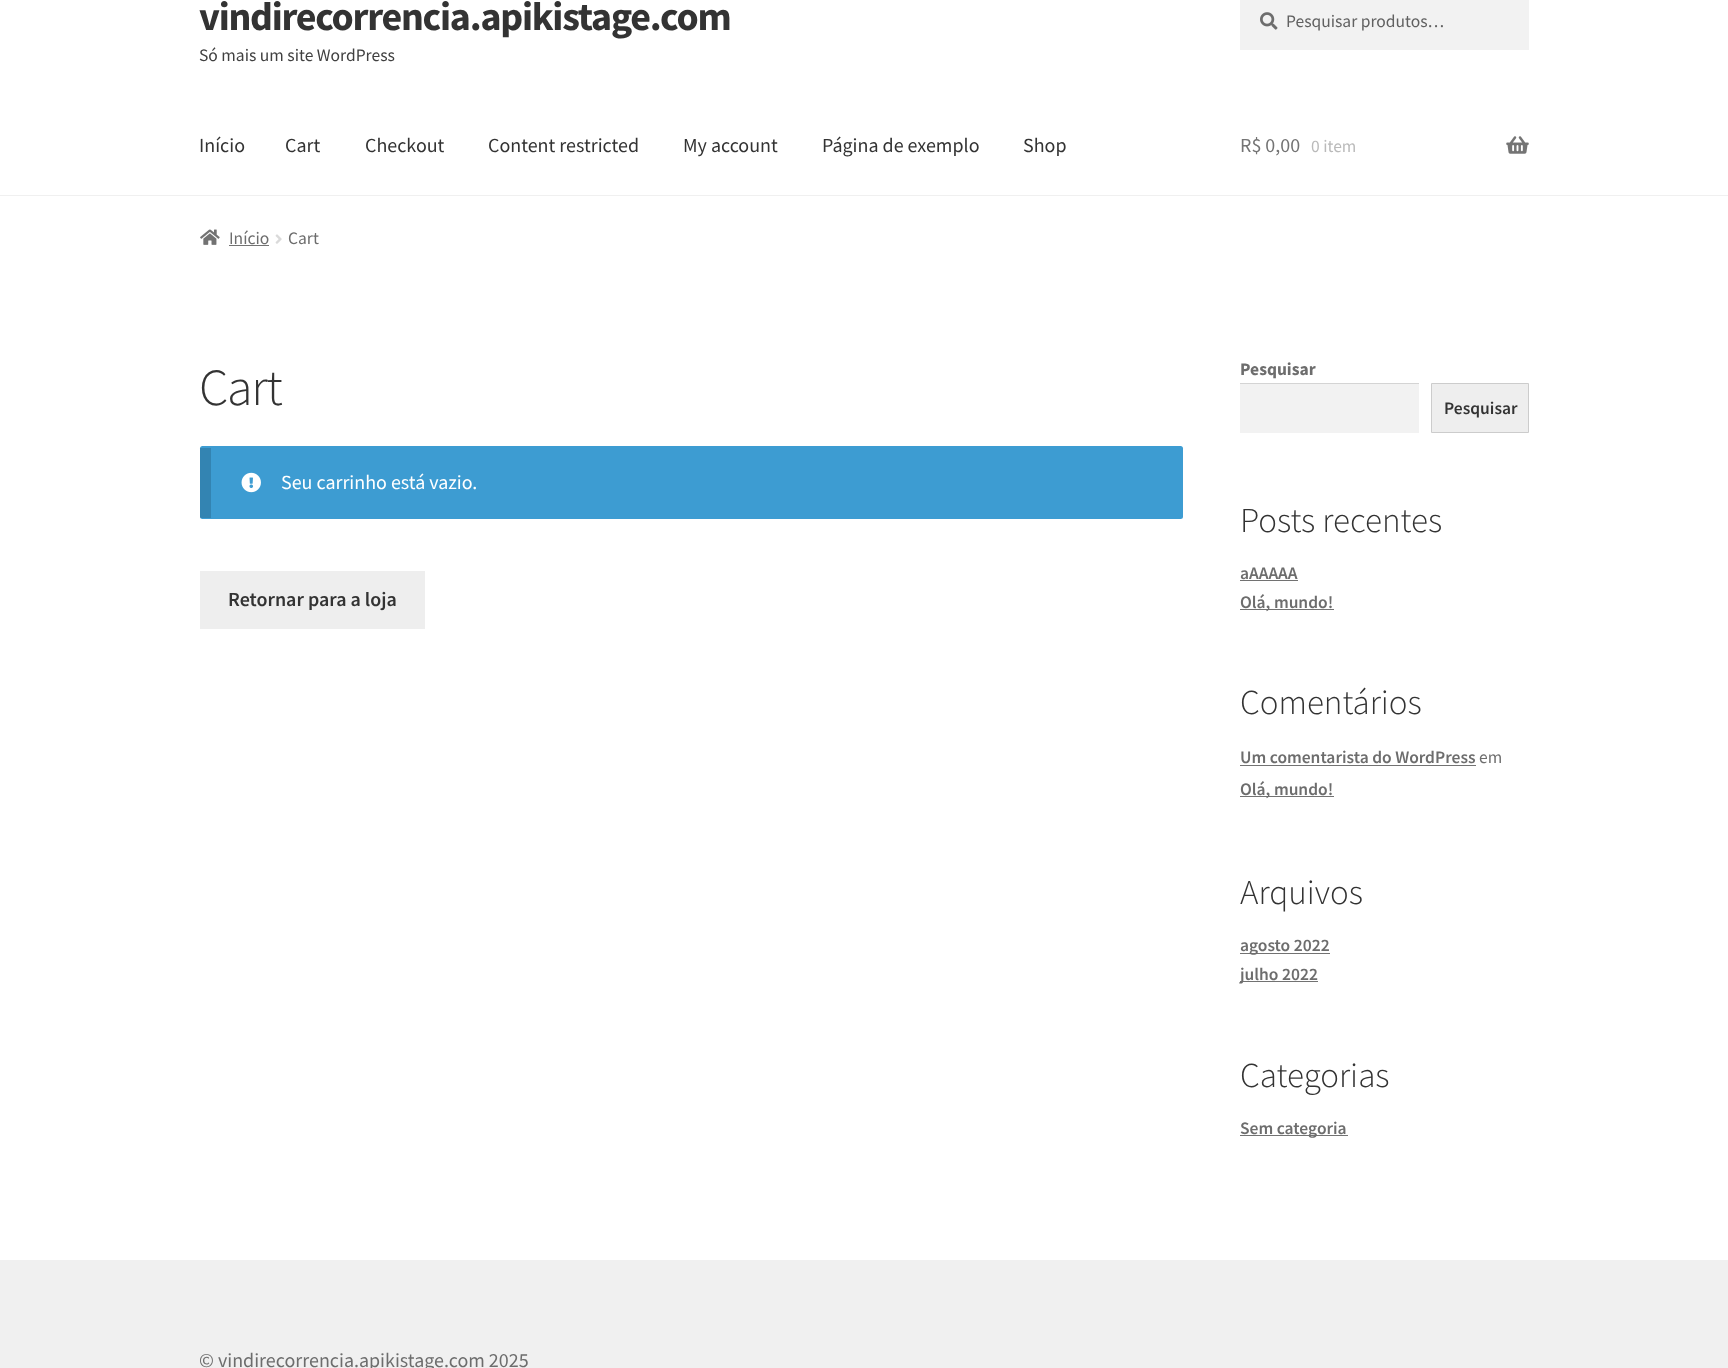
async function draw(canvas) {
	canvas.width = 1728;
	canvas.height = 1368;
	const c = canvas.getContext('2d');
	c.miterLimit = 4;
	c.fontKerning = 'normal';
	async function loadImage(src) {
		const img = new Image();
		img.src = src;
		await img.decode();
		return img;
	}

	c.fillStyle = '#fff';
	c.fillRect(0, 0, 1728, 1368);
	c.fillStyle = '#f0f0f0';
	c.fillRect(0, 195, 1728, 1);
	c.letterSpacing = '-1.25px';
	c.font = 'bold 40px Source Sans Pro';
	c.fillStyle = '#333';
	c.fillText('vindirecorrencia.apikistage.com', 199, 30);
	c.letterSpacing = '0px';
	c.font = '17.5px Source Sans Pro';
	c.fillStyle = '#404040';
	c.fillText('Só mais um site WordPress', 199, 61);
	c.fillStyle = '#f2f2f2';
	c.fillRect(1240, 0, 289, 50);
	c.drawImage(await loadImage('img1.png'), 1260, 12, 18, 18);
	c.fillStyle = '#616161';
	c.fillText('Pesquisar produtos…', 1286, 27);
	c.font = '20px Source Sans Pro';
	c.fillStyle = '#333';
	for (const [text, x, y] of [
		['Início', 199, 152],
		['Cart', 285, 152],
		['Checkout', 365, 152],
		['Content restricted', 488, 152],
		['My account', 683, 152],
		['Página de exemplo', 822, 152],
		['Shop', 1023, 152],
	]) {
		c.fillText(text, x, y);
	}
	c.fillStyle = '#747474';
	c.fillText('R$ 0,00', 1240, 152);
	c.font = '17.5px Source Sans Pro';
	c.fillStyle = '#bababa';
	c.fillText('0 item', 1311, 152);
	c.drawImage(await loadImage('img2.png'), 1506, 136, 23, 18);
	c.drawImage(await loadImage('img3.png'), 200, 229, 20, 16);
	c.fillStyle = '#6d6d6d';
	c.fillText('Início', 229, 244);
	c.fillStyle = '#727272';
	c.fillRect(229, 245, 40, 1);
	c.drawImage(await loadImage('img4.png'), 275, 234, 7, 10);
	c.fillStyle = '#6d6d6d';
	c.fillText('Cart', 288, 244);
	c.letterSpacing = '-1.25px';
	c.font = '300 52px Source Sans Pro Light';
	c.fillStyle = '#333';
	c.fillText('Cart', 199, 405);
	c.fillStyle = '#3d9cd2';
	c.beginPath();
	c.roundRect(200, 446, 983, 73, 2.5);
	c.fill();
	c.fillStyle = '#00000026';
	c.fillRect(200, 448, 11, 70);
	c.drawImage(await loadImage('img5.png'), 241, 472, 20, 21);
	c.letterSpacing = '0px';
	c.font = '20px Source Sans Pro';
	c.fillStyle = '#fff';
	c.fillText('Seu carrinho está vazio.', 281, 489);
	c.fillStyle = '#eee';
	c.fillRect(200, 571, 225, 58);
	c.font = '600 20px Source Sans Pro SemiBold';
	c.fillStyle = '#333';
	c.fillText('Retornar para a loja', 228, 606);
	c.font = 'bold 17.5px Source Sans Pro';
	c.fillStyle = '#6d6d6d';
	c.fillText('Pesquisar', 1240, 375);
	c.fillStyle = '#f2f2f2';
	c.fillRect(1240, 384, 179, 49);
	c.fillStyle = '#d4d4d4';
	c.fillRect(1240, 383, 179, 1);
	c.fillStyle = '#eee';
	c.beginPath();
	c.rect(1431.5, 383.5, 97, 49);
	c.fill();
	c.strokeStyle = '#ccc';
	c.stroke();
	c.font = '600 17.5px Source Sans Pro SemiBold';
	c.fillStyle = '#333';
	c.fillText('Pesquisar', 1444, 414);
	c.font = '300 35px Source Sans Pro Light';
	c.fillText('Posts recentes', 1240, 532);
	c.font = '600 17.5px Source Sans Pro SemiBold';
	c.fillStyle = '#6d6d6d';
	c.fillText('aAAAAA', 1240, 579);
	c.fillStyle = '#727272';
	c.fillRect(1240, 580, 58, 1);
	c.fillRect(1240, 609, 94, 1);
	c.fillStyle = '#6d6d6d';
	c.fillText('Olá, mundo!', 1240, 608);
	c.font = '300 35px Source Sans Pro Light';
	c.fillStyle = '#333';
	c.fillText('Comentários', 1240, 714);
	c.font = '600 17.5px Source Sans Pro SemiBold';
	c.fillStyle = '#6d6d6d';
	c.fillText('Um comentarista do WordPress', 1240, 763);
	c.fillStyle = '#727272';
	c.fillRect(1240, 765, 236, 1);
	c.font = '17.5px Source Sans Pro';
	c.fillStyle = '#6d6d6d';
	c.fillText('em', 1479, 763);
	c.fillStyle = '#727272';
	c.fillRect(1240, 796, 94, 1);
	c.font = '600 17.5px Source Sans Pro SemiBold';
	c.fillStyle = '#6d6d6d';
	c.fillText('Olá, mundo!', 1240, 795);
	c.font = '300 35px Source Sans Pro Light';
	c.fillStyle = '#333';
	c.fillText('Arquivos', 1240, 904);
	c.fillStyle = '#727272';
	c.fillRect(1240, 953, 90, 1);
	c.font = '600 17.5px Source Sans Pro SemiBold';
	c.fillStyle = '#6d6d6d';
	c.fillText('agosto 2022', 1240, 951);
	c.fillStyle = '#727272';
	c.fillRect(1240, 981, 78, 1);
	c.fillStyle = '#6d6d6d';
	c.fillText('julho 2022', 1240, 980);
	c.font = '300 35px Source Sans Pro Light';
	c.fillStyle = '#333';
	c.fillText('Categorias', 1240, 1087);
	c.fillStyle = '#727272';
	c.fillRect(1240, 1135, 108, 1);
	c.font = '600 17.5px Source Sans Pro SemiBold';
	c.fillStyle = '#6d6d6d';
	c.fillText('Sem categoria', 1240, 1134);
	c.fillStyle = '#f0f0f0';
	c.fillRect(0, 1260, 1728, 108);
	c.font = '20px Source Sans Pro';
	c.fillStyle = '#6d6d6d';
	c.fillText('© vindirecorrencia.apikistage.com 2025', 199, 1367);
}

draw(document.querySelector('canvas'));
